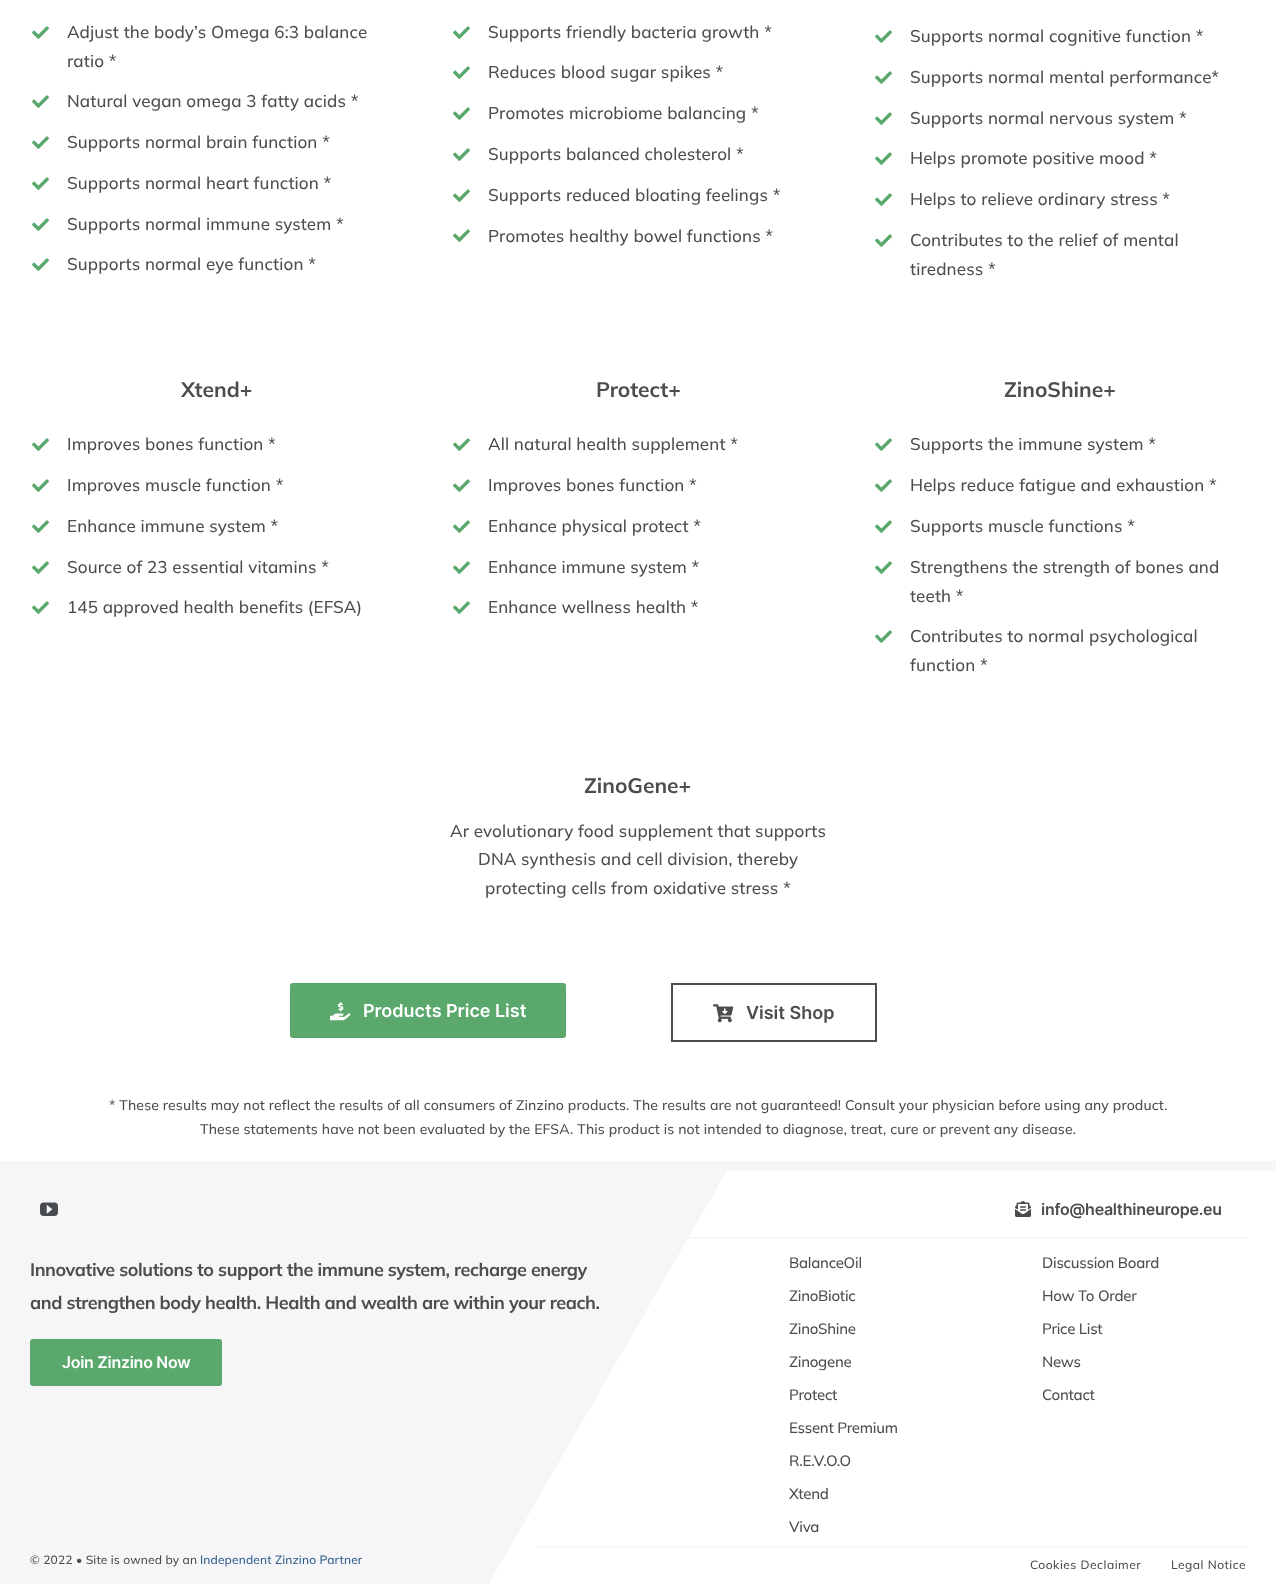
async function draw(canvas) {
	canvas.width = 1276;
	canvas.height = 1584;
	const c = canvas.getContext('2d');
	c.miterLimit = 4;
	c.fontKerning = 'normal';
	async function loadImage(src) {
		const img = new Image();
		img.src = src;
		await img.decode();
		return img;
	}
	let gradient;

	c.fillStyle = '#fff';
	c.fillRect(0, 0, 1276, 1584);
	c.drawImage(await loadImage('img1.png'), 32, 26, 17, 13);
	c.letterSpacing = '0.14px';
	c.font = '500 17px Mulish';
	c.fillStyle = '#4d4d4d';
	c.fillText('Adjust the body’s Omega 6:3 balance', 67, 38);
	c.fillText('ratio *', 67, 67);
	c.drawImage(await loadImage('img1.png'), 32, 95, 17, 13);
	c.fillText('Natural vegan omega 3 fatty acids *', 67, 107);
	c.drawImage(await loadImage('img1.png'), 32, 136, 17, 13);
	c.fillText('Supports normal brain function *', 67, 148);
	c.drawImage(await loadImage('img1.png'), 32, 177, 17, 13);
	c.fillText('Supports normal heart function *', 67, 189);
	c.drawImage(await loadImage('img1.png'), 32, 218, 17, 13);
	c.fillText('Supports normal immune system *', 67, 230);
	c.drawImage(await loadImage('img1.png'), 32, 258, 17, 13);
	c.fillText('Supports normal eye function *', 67, 270);
	c.drawImage(await loadImage('img1.png'), 453, 26, 17, 13);
	c.fillText('Supports friendly bacteria growth *', 488, 38);
	c.drawImage(await loadImage('img1.png'), 453, 66, 17, 13);
	c.fillText('Reduces blood sugar spikes *', 488, 78);
	c.drawImage(await loadImage('img1.png'), 453, 107, 17, 13);
	c.fillText('Promotes microbiome balancing *', 488, 119);
	c.drawImage(await loadImage('img1.png'), 453, 148, 17, 13);
	c.fillText('Supports balanced cholesterol *', 488, 160);
	c.drawImage(await loadImage('img1.png'), 453, 189, 17, 13);
	c.fillText('Supports reduced bloating feelings *', 488, 201);
	c.drawImage(await loadImage('img1.png'), 453, 229, 17, 13);
	c.fillText('Promotes healthy bowel functions *', 488, 242);
	c.drawImage(await loadImage('img1.png'), 875, 30, 17, 13);
	c.fillText('Supports normal cognitive function *', 910, 42);
	c.drawImage(await loadImage('img1.png'), 875, 71, 17, 13);
	c.fillText('Supports normal mental performance*', 910, 83);
	c.drawImage(await loadImage('img1.png'), 875, 112, 17, 13);
	c.fillText('Supports normal nervous system *', 910, 124);
	c.drawImage(await loadImage('img1.png'), 875, 152, 17, 13);
	c.fillText('Helps promote positive mood *', 910, 164);
	c.drawImage(await loadImage('img1.png'), 875, 193, 17, 13);
	c.fillText('Helps to relieve ordinary stress *', 910, 205);
	c.drawImage(await loadImage('img1.png'), 875, 234, 17, 13);
	c.fillText('Contributes to the relief of mental', 910, 246);
	c.fillText('tiredness *', 910, 275);
	c.letterSpacing = '0px';
	c.font = 'bold 21px Mulish';
	c.fillText('Xtend+', 181, 397);
	c.drawImage(await loadImage('img1.png'), 32, 438, 17, 13);
	c.letterSpacing = '0.14px';
	c.font = '500 17px Mulish';
	c.fillText('Improves bones function *', 67, 450);
	c.drawImage(await loadImage('img1.png'), 32, 479, 17, 13);
	c.fillText('Improves muscle function *', 67, 491);
	c.drawImage(await loadImage('img1.png'), 32, 520, 17, 13);
	c.fillText('Enhance immune system *', 67, 532);
	c.drawImage(await loadImage('img1.png'), 32, 561, 17, 13);
	c.fillText('Source of 23 essential vitamins *', 67, 573);
	c.drawImage(await loadImage('img1.png'), 32, 601, 17, 13);
	c.fillText('145 approved health benefits (EFSA)', 67, 613);
	c.letterSpacing = '0px';
	c.font = 'bold 21px Mulish';
	c.fillText('Protect+', 596, 397);
	c.drawImage(await loadImage('img1.png'), 453, 438, 17, 13);
	c.letterSpacing = '0.14px';
	c.font = '500 17px Mulish';
	c.fillText('All natural health supplement *', 488, 450);
	c.drawImage(await loadImage('img1.png'), 453, 479, 17, 13);
	c.fillText('Improves bones function *', 488, 491);
	c.drawImage(await loadImage('img1.png'), 453, 520, 17, 13);
	c.fillText('Enhance physical protect *', 488, 532);
	c.drawImage(await loadImage('img1.png'), 453, 561, 17, 13);
	c.fillText('Enhance immune system *', 488, 573);
	c.drawImage(await loadImage('img1.png'), 453, 601, 17, 13);
	c.fillText('Enhance wellness health *', 488, 613);
	c.letterSpacing = '0px';
	c.font = 'bold 21px Mulish';
	c.fillText('ZinoShine+', 1004, 397);
	c.drawImage(await loadImage('img1.png'), 875, 438, 17, 13);
	c.letterSpacing = '0.14px';
	c.font = '500 17px Mulish';
	c.fillText('Supports the immune system *', 910, 450);
	c.drawImage(await loadImage('img1.png'), 875, 479, 17, 13);
	c.fillText('Helps reduce fatigue and exhaustion *', 910, 491);
	c.drawImage(await loadImage('img1.png'), 875, 520, 17, 13);
	c.fillText('Supports muscle functions *', 910, 532);
	c.drawImage(await loadImage('img1.png'), 875, 561, 17, 13);
	c.fillText('Strengthens the strength of bones and', 910, 573);
	c.fillText('teeth *', 910, 602);
	c.drawImage(await loadImage('img1.png'), 875, 630, 17, 13);
	c.fillText('Contributes to normal psychological', 910, 642);
	c.fillText('function *', 910, 671);
	c.letterSpacing = '0px';
	c.font = 'bold 21px Mulish';
	c.fillText('ZinoGene+', 584, 793);
	c.letterSpacing = '0.14px';
	c.font = '500 17px Mulish';
	for (const [text, x, y] of [
		['Ar evolutionary food supplement that supports', 450, 837],
		['DNA synthesis and cell division, thereby', 478, 865],
		['protecting cells from oxidative stress *', 485, 894],
	]) {
		c.fillText(text, x, y);
	}
	c.fillStyle = '#5aa86c';
	c.beginPath();
	c.roundRect(290, 983, 276, 55, 3);
	c.fill();
	c.drawImage(await loadImage('img2.png'), 330, 1002, 21, 19);
	c.letterSpacing = '0px';
	c.font = '600 18px Inter';
	c.fillStyle = '#fff';
	c.fillText('Products Price List', 363, 1017);
	c.strokeStyle = '#4d4d4d';
	c.lineWidth = 2;
	c.strokeRect(672, 984, 204, 57);
	c.drawImage(await loadImage('img3.png'), 713, 1004, 21, 19);
	c.fillStyle = '#4d4d4d';
	c.fillText('Visit Shop', 746, 1019);
	c.letterSpacing = '0.14px';
	c.font = '500 14px Mulish';
	c.fillText('* These results may not reflect the results of all consumers of Zinzino products. The results are not guaranteed! Consult your physician before using any product.', 109, 1110);
	c.fillText('These statements have not been evaluated by the EFSA. This product is not intended to diagnose, treat, cure or prevent any disease.', 200, 1134);
	gradient = c.createLinearGradient(70, 1050, 1206, 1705);
	gradient.addColorStop(0.48, '#f6f6f9');
	gradient.addColorStop(0.48, '#fff');
	c.fillStyle = gradient;
	c.fillRect(0, 1171, 726, 413);
	c.fillStyle = '#f6f6f9';
	c.fillRect(0, 1161, 1276, 10);
	c.fillRect(688, 1237, 558, 2);
	c.drawImage(await loadImage('img4.png'), 40, 1202, 18, 14);
	c.drawImage(await loadImage('img5.png'), 1015, 1201, 16, 16);
	c.letterSpacing = '-0.25px';
	c.font = '600 16px Inter';
	c.fillStyle = '#4d4d4d';
	c.fillText('info@healthineurope.eu', 1041, 1215);
	c.letterSpacing = '-0.43px';
	c.font = 'bold 18px Mulish';
	c.fillText('Innovative solutions to support the immune system, recharge energy', 30, 1276);
	c.fillText('and strengthen body health. Health and wealth are within your reach.', 30, 1309);
	c.fillStyle = '#5aa86c';
	c.beginPath();
	c.roundRect(30, 1339, 192, 47, 3);
	c.fill();
	c.letterSpacing = '-0.25px';
	c.font = '600 16px Inter';
	c.fillStyle = '#fff';
	c.fillText('Join Zinzino Now', 62, 1368);
	c.font = '500 15px Mulish';
	c.fillStyle = '#4d4d4d';
	for (const [text, x, y] of [
		['BalanceOil', 789, 1268],
		['ZinoBiotic', 789, 1301],
		['ZinoShine', 789, 1334],
		['Zinogene', 789, 1367],
		['Protect', 789, 1400],
		['Essent Premium', 789, 1433],
		['R.E.V.O.O', 789, 1466],
		['Xtend', 789, 1499],
		['Viva', 789, 1532],
		['Discussion Board', 1042, 1268],
		['How To Order', 1042, 1301],
		['Price List', 1042, 1334],
		['News', 1042, 1367],
		['Contact', 1042, 1400],
	]) {
		c.fillText(text, x, y);
	}
	c.letterSpacing = '0.14px';
	c.font = '500 12px Mulish';
	c.fillText('© 2022 • Site is owned by an', 30, 1564);
	c.fillStyle = '#2f5d8c';
	c.fillText('Independent Zinzino Partner', 200, 1564);
	c.fillStyle = '#f6f6f9';
	c.fillRect(536, 1546, 710, 2);
	c.letterSpacing = '0.5px';
	c.fillStyle = '#4d4d4d';
	c.fillText('Cookies Declaimer', 1030, 1569);
	c.fillText('Legal Notice', 1171, 1569);
}

draw(document.querySelector('canvas'));
